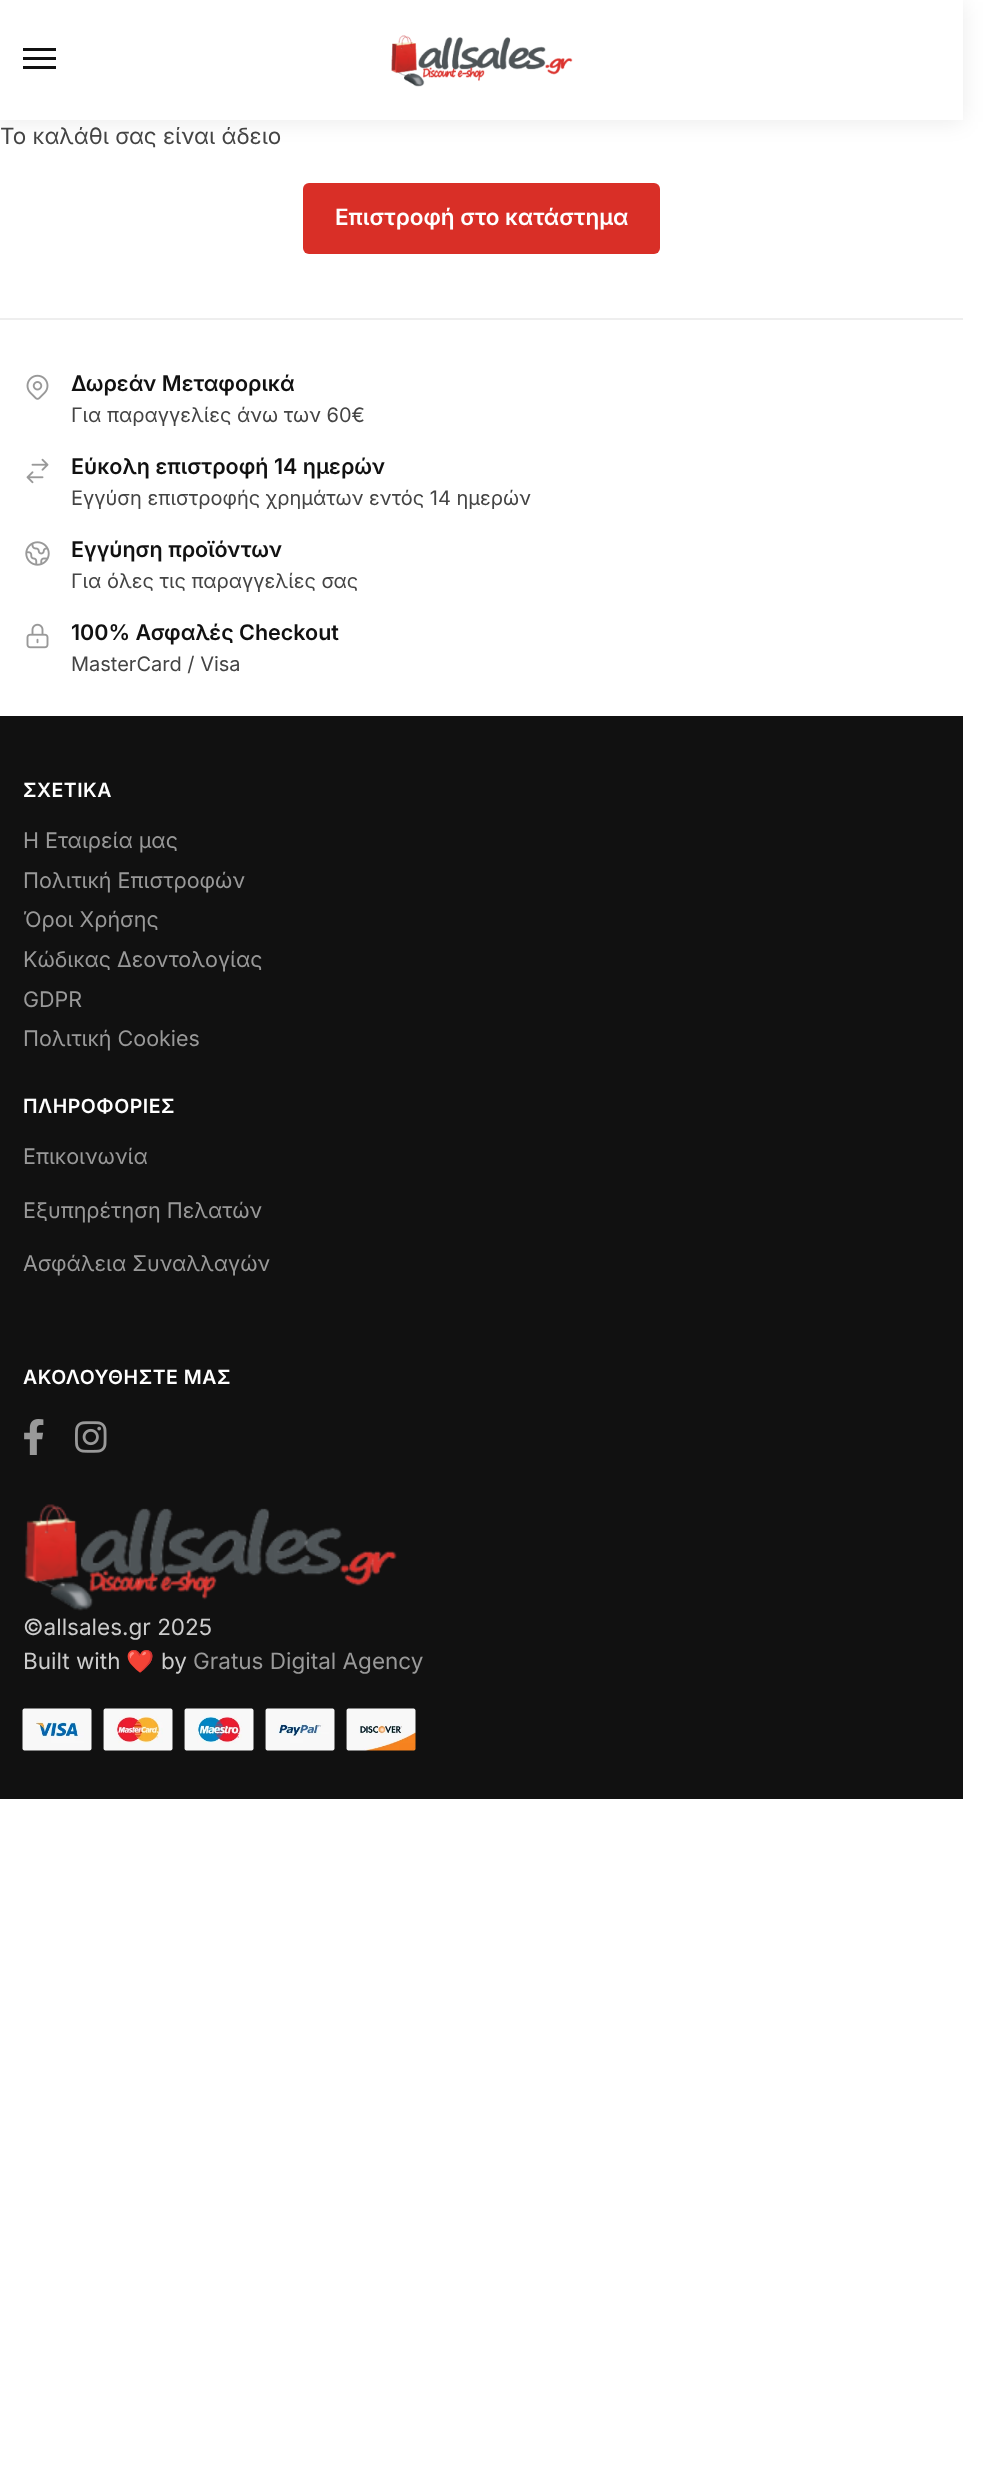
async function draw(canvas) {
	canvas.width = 985;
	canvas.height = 2477;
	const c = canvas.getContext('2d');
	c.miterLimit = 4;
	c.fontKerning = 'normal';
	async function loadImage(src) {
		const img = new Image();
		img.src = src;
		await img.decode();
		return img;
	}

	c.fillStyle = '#fff';
	c.fillRect(0, 0, 985, 2477);
	c.save();
	c.beginPath();
	c.moveTo(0, 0);
	c.lineTo(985, 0);
	c.lineTo(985, 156);
	c.lineTo(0, 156);
	c.closePath();
	c.moveTo(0, 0);
	c.lineTo(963, 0);
	c.lineTo(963, 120);
	c.lineTo(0, 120);
	c.closePath();
	c.clip('evenodd');
	c.fillStyle = '#00000014';
	c.filter = 'blur(11px)';
	c.beginPath();
	c.rect(0, 2, 963, 120);
	c.fill();
	c.filter = 'none';
	c.restore();
	for (const [x, y, w, h, color] of [
		[23, 48, 33, 3, '#111'],
		[23, 57, 33, 3, '#111'],
		[23, 66, 33, 3, '#111'],
	]) {
		c.fillStyle = color;
		c.fillRect(x, y, w, h);
	}
	c.drawImage(await loadImage('img1.png'), 391, 35, 182, 52);
	c.font = '22.5px Inter';
	c.fillStyle = '#444';
	c.fillText('Το καλάθι σας είναι άδειο', 0, 144);
	c.fillStyle = '#d92f27';
	c.beginPath();
	c.roundRect(303, 183, 357, 71, 6);
	c.fill();
	c.font = '600 22.5px Inter';
	c.fillStyle = '#fff';
	c.fillText('Επιστροφή στο κατάστημα', 335, 225);
	c.fillStyle = '#eee';
	c.fillRect(0, 318, 963, 2);
	c.font = '600 21.5px Inter';
	c.fillStyle = '#111';
	c.fillText('Δωρεάν Μεταφορικά', 71, 391);
	c.drawImage(await loadImage('img2.png'), 26, 374, 23, 26);
	c.font = '20px Inter';
	c.fillStyle = '#444';
	c.fillText('Για παραγγελίες άνω των 60€', 71, 422);
	c.font = '600 21.5px Inter';
	c.fillStyle = '#111';
	c.fillText('Εύκολη επιστροφή 14 ημερών', 71, 474);
	c.drawImage(await loadImage('img3.png'), 26, 458, 23, 26);
	c.font = '20px Inter';
	c.fillStyle = '#444';
	c.fillText('Εγγύση επιστροφής χρημάτων εντός 14 ημερών', 71, 505);
	c.font = '600 21.5px Inter';
	c.fillStyle = '#111';
	c.fillText('Εγγύηση προϊόντων', 71, 557);
	c.drawImage(await loadImage('img4.png'), 25, 541, 25, 25);
	c.font = '20px Inter';
	c.fillStyle = '#444';
	c.fillText('Για όλες τις παραγγελίες σας', 71, 588);
	c.font = '600 21.5px Inter';
	c.fillStyle = '#111';
	c.fillText('100% Ασφαλές Checkout', 71, 640);
	c.drawImage(await loadImage('img5.png'), 26, 623, 23, 26);
	c.font = '20px Inter';
	c.fillStyle = '#444';
	c.fillText('MasterCard / Visa', 71, 671);
	c.fillStyle = '#111';
	c.fillRect(0, 716, 963, 1083);
	c.letterSpacing = '0.5px';
	c.font = '600 19.5px Inter';
	c.fillStyle = '#fff';
	c.fillText('ΣΧΕΤΙΚΑ', 23, 797);
	c.letterSpacing = '0px';
	c.font = '21.5px Inter';
	c.fillStyle = '#999';
	for (const [text, x, y] of [
		['Η Εταιρεία μας', 23, 848],
		['Πολιτική Επιστροφών', 23, 888],
		['Όροι Χρήσης', 23, 927],
		['Κώδικας Δεοντολογίας', 23, 967],
		['GDPR', 23, 1007],
		['Πολιτική Cookies', 23, 1046],
	]) {
		c.fillText(text, x, y);
	}
	c.letterSpacing = '0.5px';
	c.font = '600 19.5px Inter';
	c.fillStyle = '#fff';
	c.fillText('ΠΛΗΡΟΦΟΡΙΕΣ', 23, 1113);
	c.letterSpacing = '0px';
	c.font = '21.5px Inter';
	c.fillStyle = '#999';
	for (const [text, x, y] of [
		['Επικοινωνία', 23, 1164],
		['Εξυπηρέτηση Πελατών', 23, 1218],
		['Ασφάλεια Συναλλαγών', 23, 1271],
	]) {
		c.fillText(text, x, y);
	}
	c.letterSpacing = '0.5px';
	c.font = '600 19.5px Inter';
	c.fillStyle = '#fff';
	c.fillText('ΑΚΟΛΟΥΘΗΣΤΕ ΜΑΣ', 23, 1384);
	c.drawImage(await loadImage('img6.png'), 24, 1419, 20, 36);
	c.drawImage(await loadImage('img7.png'), 75, 1421, 32, 32);
	c.drawImage(await loadImage('img8.png'), 24, 1504, 373, 107);
	c.letterSpacing = '0px';
	c.font = '22.5px Inter';
	c.fillStyle = '#ccc';
	c.fillText('©allsales.gr 2025', 23, 1635);
	c.fillText('Built with', 23, 1669);
	c.font = '22.5px Noto Color Emoji';
	c.fillText('❤️', 126, 1669);
	c.font = '22.5px Inter';
	c.fillText('by', 161, 1669);
	c.fillStyle = '#999';
	c.fillText('Gratus Digital Agency', 193, 1669);
	c.drawImage(await loadImage('img9.png'), 22, 1708, 394, 43);
}

draw(document.querySelector('canvas'));
